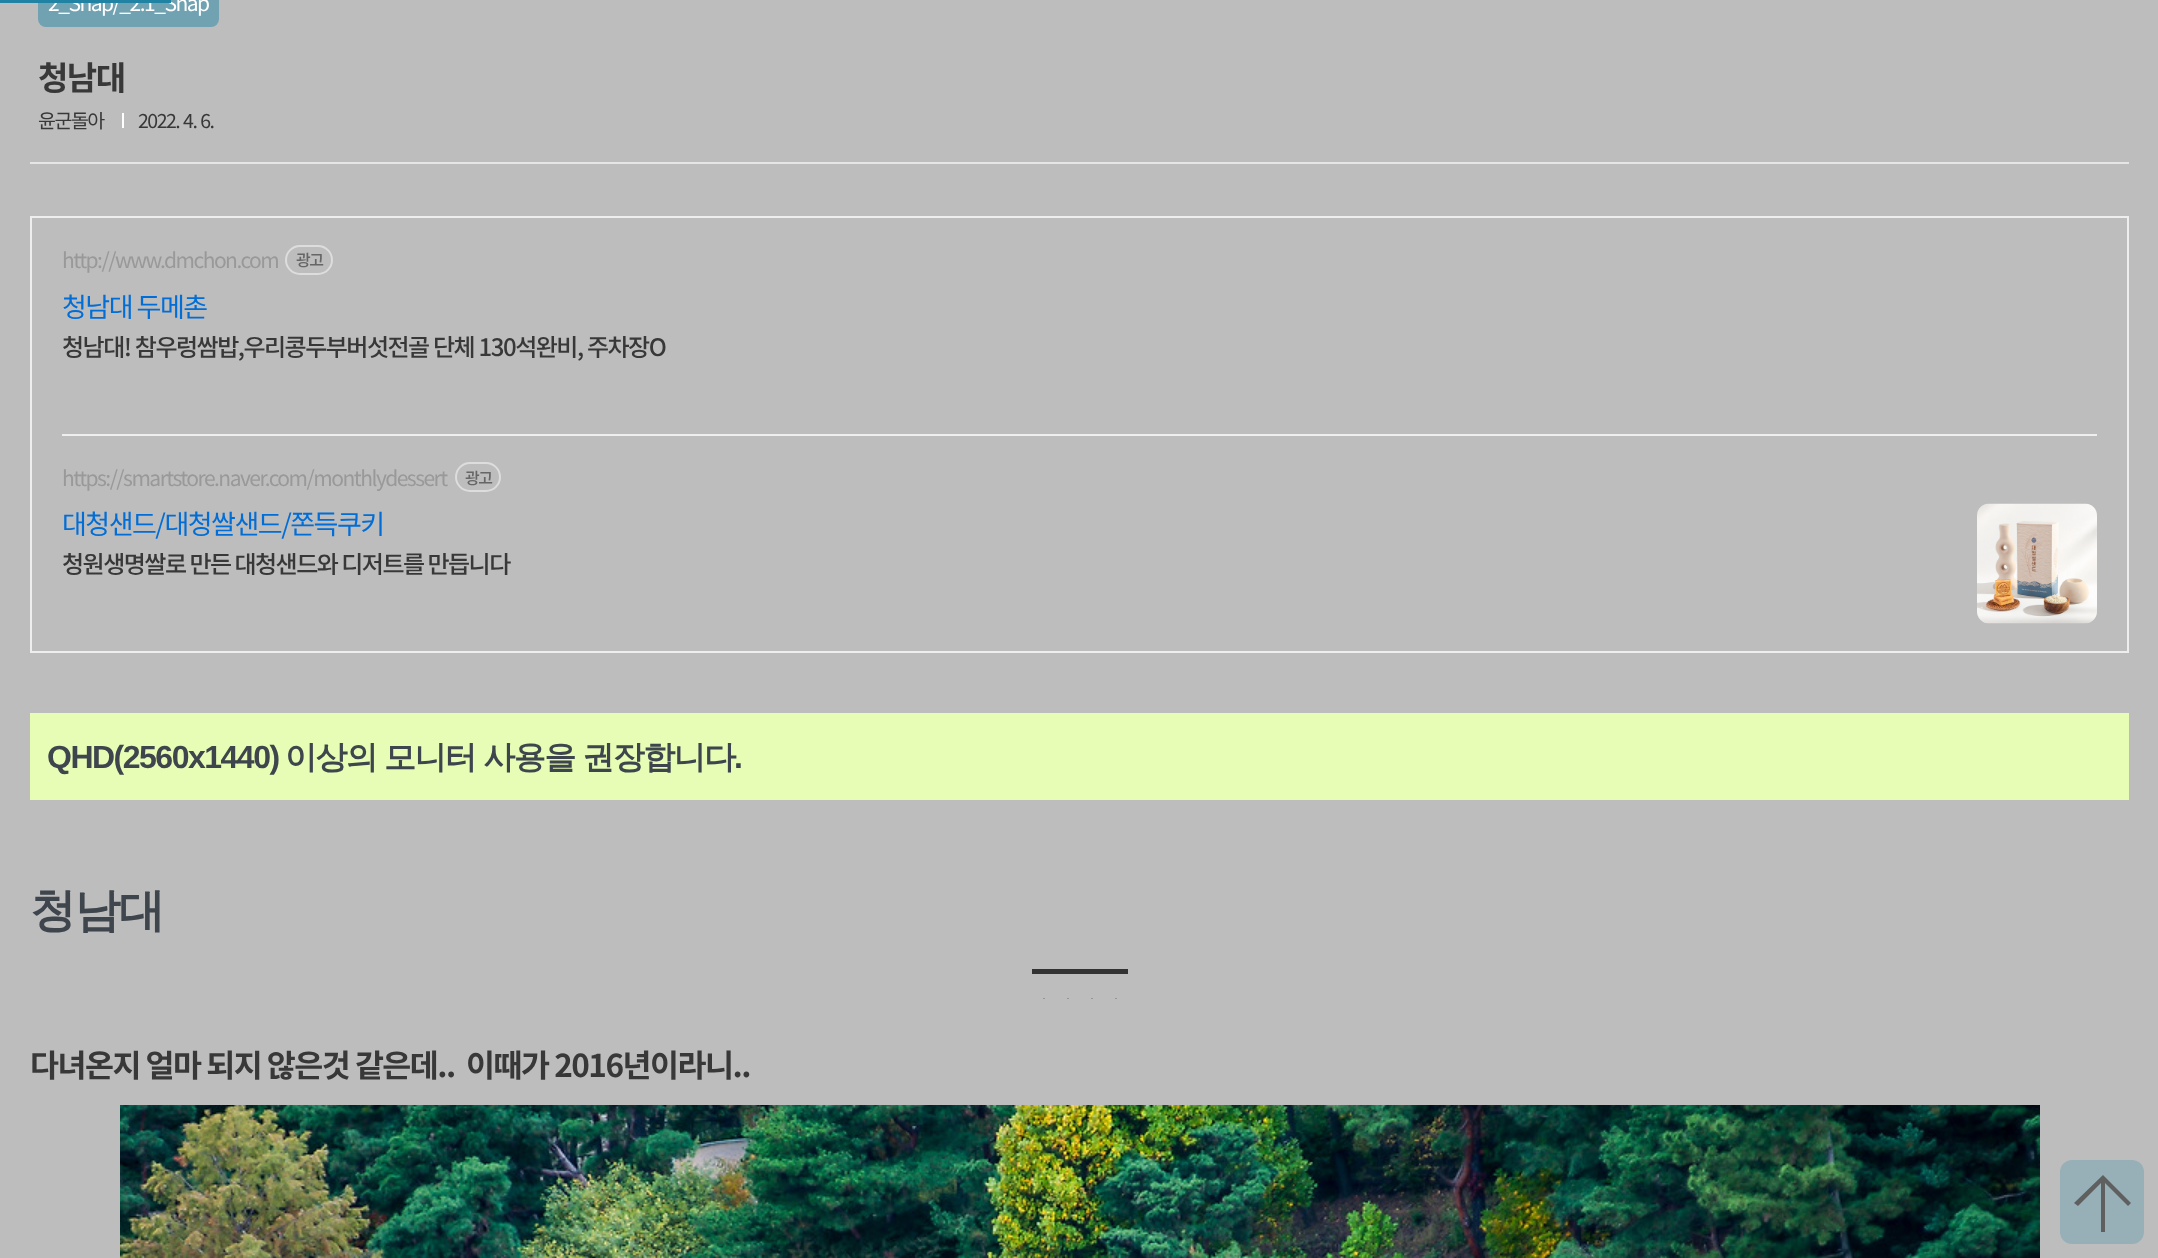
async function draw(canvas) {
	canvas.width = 2158;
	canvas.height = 1258;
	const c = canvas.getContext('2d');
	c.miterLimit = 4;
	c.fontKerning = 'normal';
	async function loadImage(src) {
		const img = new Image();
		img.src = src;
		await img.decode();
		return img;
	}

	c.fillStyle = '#bdbdbd';
	c.fillRect(0, 0, 2158, 1258);
	c.fillStyle = '#70a2b2';
	c.beginPath();
	c.roundRect(38, -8, 181, 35, 8);
	c.fill();
	c.letterSpacing = '-1.5px';
	c.font = '21px Noto Sans KR';
	c.fillStyle = '#fff';
	c.fillText('2_Snap/_2.1_Snap', 48, 11);
	c.fillStyle = '#2083a4';
	c.fillRect(0, 0, 171, 3);
	c.fillStyle = '#e5e5e5';
	c.fillRect(30, 162, 2099, 2);
	c.font = 'bold 33px Noto Sans KR';
	c.fillStyle = '#383838';
	c.fillText('청남대', 38, 90);
	c.font = '19.5px Noto Sans KR';
	c.fillText('윤군돌아', 38, 128);
	c.fillStyle = '#fff';
	c.fillRect(122, 113, 2, 15);
	c.wordSpacing = '1px';
	c.fillStyle = '#383838';
	c.fillText('2022. 4. 6.', 138, 128);
	c.strokeStyle = '#eee';
	c.lineWidth = 2;
	c.strokeRect(31, 217, 2097, 435);
	c.wordSpacing = '0px';
	c.font = '21px Noto Sans KR';
	c.fillStyle = '#999';
	c.fillText('http://www.dmchon.com', 62, 268);
	c.beginPath();
	c.roundRect(286, 246, 46, 28, 14);
	c.strokeStyle = '#ddd';
	c.stroke();
	c.font = '500 16px Noto Sans KR';
	c.fillStyle = '#666';
	c.fillText('광고', 296, 266);
	c.font = '27px Noto Sans KR';
	c.fillStyle = '#016dd7';
	c.fillText('청남대 두메촌', 62, 317);
	c.wordSpacing = '0.5px';
	c.font = '500 24px Noto Sans KR';
	c.fillStyle = '#383838';
	c.fillText('청남대! 참우렁쌈밥,우리콩두부버섯전골 단체 130석완비, 주차장O', 62, 356);
	c.fillStyle = '#eee';
	c.fillRect(62, 434, 2035, 2);
	c.wordSpacing = '0px';
	c.font = '21px Noto Sans KR';
	c.fillStyle = '#999';
	c.fillText('https://smartstore.naver.com/monthlydessert', 62, 486);
	c.beginPath();
	c.roundRect(456, 463, 44, 28, 14);
	c.stroke();
	c.font = '500 16px Noto Sans KR';
	c.fillStyle = '#666';
	c.fillText('광고', 465, 484);
	c.font = '27px Noto Sans KR';
	c.fillStyle = '#016dd7';
	c.fillText('대청샌드/대청쌀샌드/쫀득쿠키', 62, 534);
	c.save();
	c.beginPath();
	c.rect(62, 540, 453, 39);
	c.clip();
	c.font = '500 24px Noto Sans KR';
	c.fillStyle = '#383838';
	c.fillText('청원생명쌀로 만든 대청샌드와 디저트를 만듭니다', 62, 573);
	c.restore();
	c.drawImage(await loadImage('img1.png'), 1977, 503, 120, 121);
	c.fillStyle = '#e7fdb5';
	c.fillRect(30, 713, 2099, 87);
	c.font = 'bold 32px Liberation Sans';
	c.fillStyle = '#3e454c';
	c.fillText('QHD(2560x1440)', 47, 768);
	c.wordSpacing = '-0.5px';
	c.font = 'bold 32px WenQuanYi Zen Hei';
	c.fillText('이상의 모니터 사용을 권장합니다', 285, 768);
	c.wordSpacing = '0px';
	c.font = 'bold 32px Liberation Sans';
	c.fillText('.', 734, 768);
	c.font = 'bold 46px WenQuanYi Zen Hei';
	c.fillText('청남대', 30, 926);
	c.drawImage(await loadImage('img2.png'), 1032, 969, 96, 30);
	c.font = 'bold 31.5px Noto Sans KR';
	c.fillStyle = '#383838';
	c.fillText('다녀온지 얼마 되지 않은것 같은데..  이때가 2016년이라니..', 30, 1077);
	c.drawImage(await loadImage('img3.png'), 120, 1105, 1920, 153);
	c.fillStyle = '#97b0b8';
	c.beginPath();
	c.roundRect(2060, 1160, 84, 84, 12);
	c.fill();
	c.fillStyle = '#5f5f5f';
	c.beginPath();
	c.moveTo(2101, 1183);
	c.lineTo(2078, 1206);
	c.lineTo(2074, 1203);
	c.lineTo(2103, 1175);
	c.lineTo(2131, 1203);
	c.lineTo(2128, 1206);
	c.lineTo(2105, 1183);
	c.lineTo(2105, 1232);
	c.lineTo(2101, 1232);
	c.closePath();
	c.fill();
}

draw(document.querySelector('canvas'));
